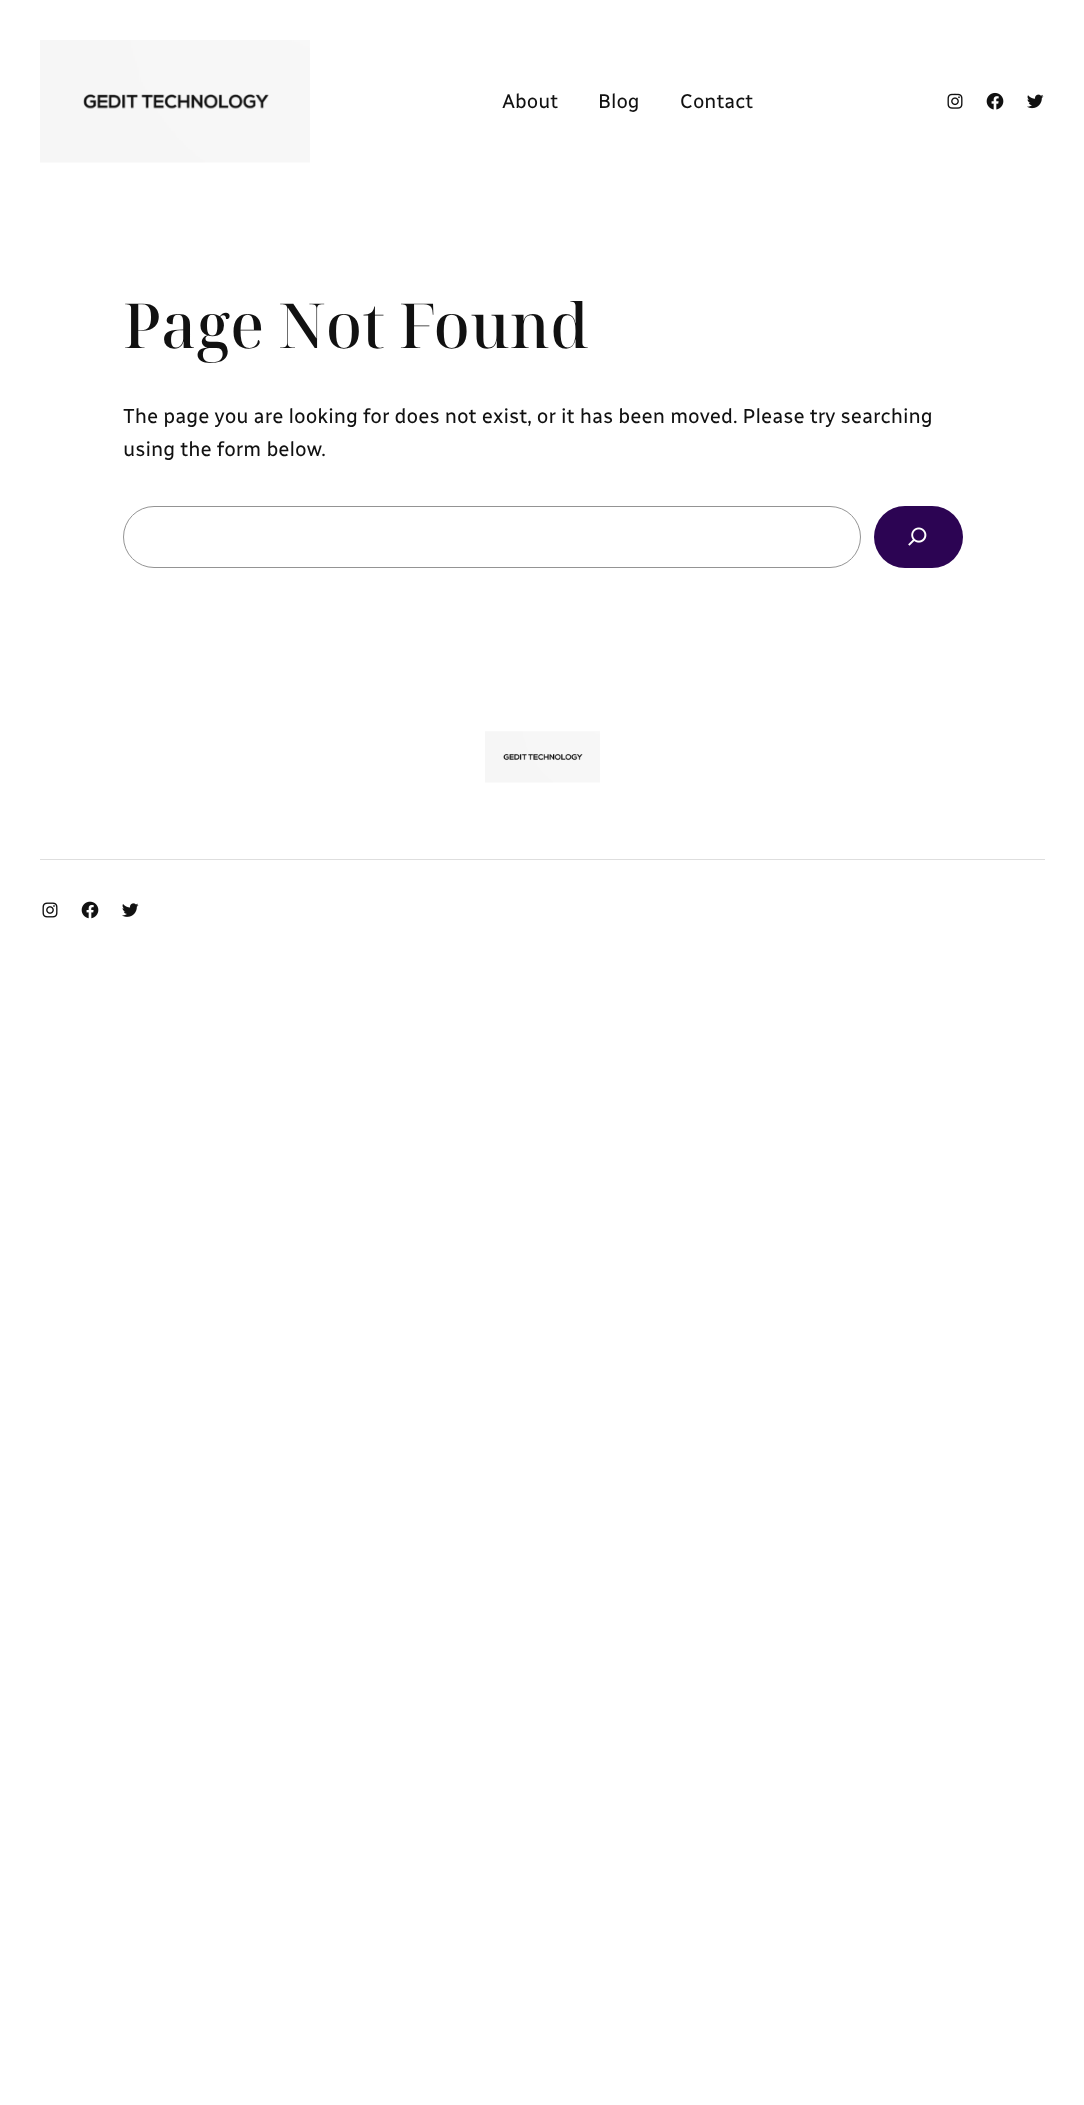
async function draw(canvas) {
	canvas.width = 1084;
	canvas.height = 2105;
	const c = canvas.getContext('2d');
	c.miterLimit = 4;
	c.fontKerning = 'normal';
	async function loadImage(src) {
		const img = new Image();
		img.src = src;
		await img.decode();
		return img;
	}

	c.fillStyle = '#fff';
	c.fillRect(0, 0, 1084, 2105);
	c.drawImage(await loadImage('img1.png'), 40, 40, 270, 123);
	c.font = '20px Radio Canada';
	c.fillStyle = '#111';
	for (const [text, x, y] of [
		['About', 502, 108],
		['Blog', 598, 108],
		['Contact', 680, 108],
	]) {
		c.fillText(text, x, y);
	}
	c.drawImage(await loadImage('img2.png'), 947, 93, 16, 16);
	c.drawImage(await loadImage('img3.png'), 986, 92, 18, 18);
	c.drawImage(await loadImage('img4.png'), 1027, 94, 17, 15);
	c.font = '500 62px Noto Serif Display';
	c.fillText('Page Not Found', 123, 348);
	c.font = '20.35px Radio Canada';
	c.fillText('The page you are looking for does not exist, or it has been moved. Please try searching', 123, 423);
	c.fillText('using the form below.', 123, 456);
	c.beginPath();
	c.roundRect(123.5, 506.5, 737, 61, 30.5);
	c.strokeStyle = '#949494';
	c.stroke();
	c.fillStyle = '#2c0453';
	c.beginPath();
	c.roundRect(874, 506, 89, 62, 31);
	c.fill();
	c.drawImage(await loadImage('img5.png'), 908, 527, 19, 19);
	c.drawImage(await loadImage('img6.png'), 485, 731, 115, 52);
	c.fillStyle = '#dedede';
	c.fillRect(40, 859, 1005, 1);
	c.drawImage(await loadImage('img7.png'), 42, 902, 16, 16);
	c.drawImage(await loadImage('img8.png'), 81, 901, 18, 18);
	c.drawImage(await loadImage('img9.png'), 122, 903, 17, 14);
}

draw(document.querySelector('canvas'));
